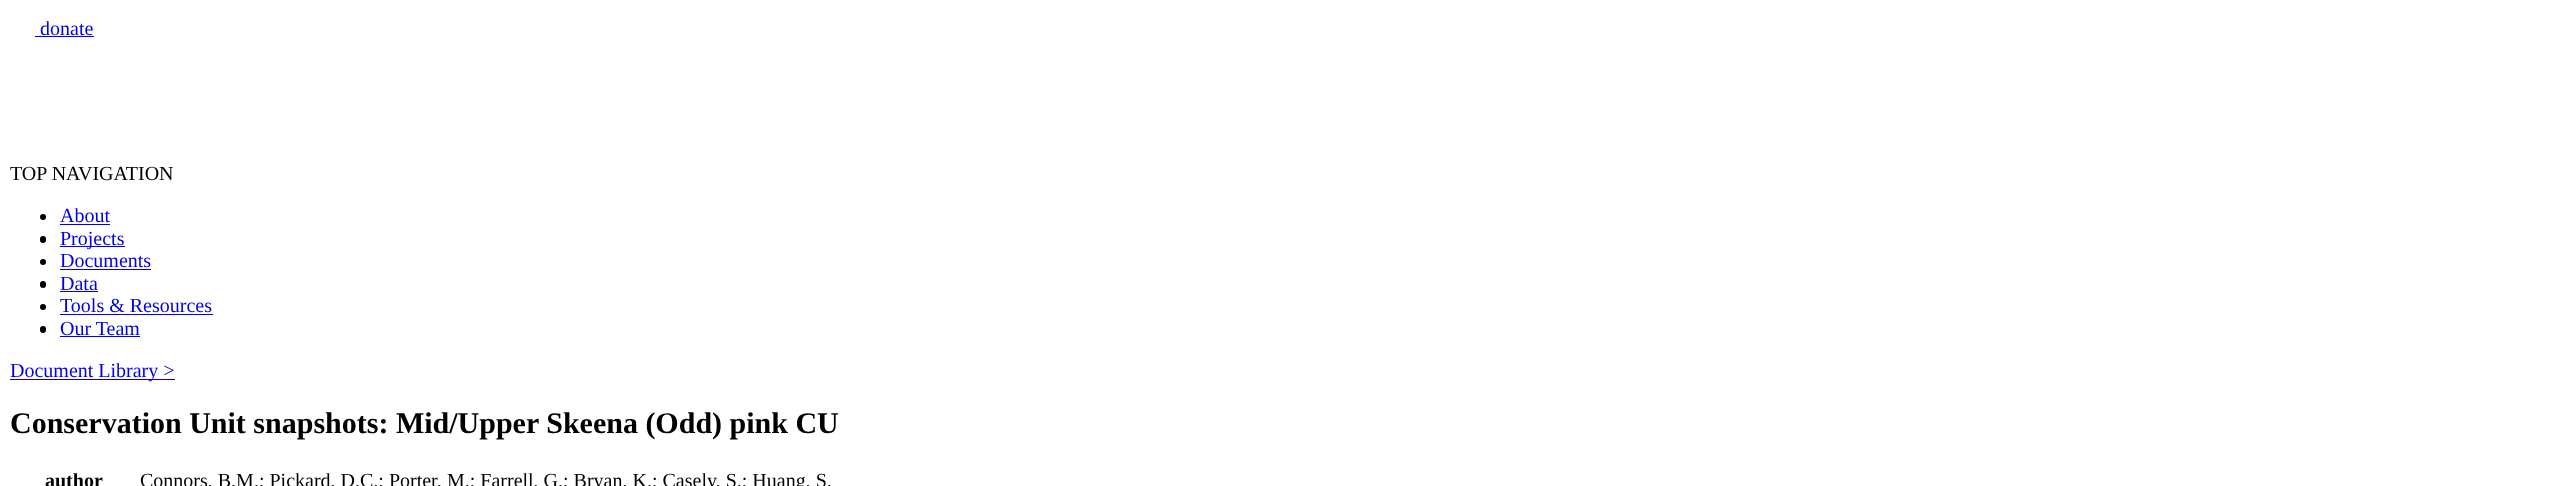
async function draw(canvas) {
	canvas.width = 2559;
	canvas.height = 486;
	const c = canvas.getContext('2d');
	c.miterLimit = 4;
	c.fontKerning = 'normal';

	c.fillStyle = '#fff';
	c.fillRect(0, 0, 2559, 486);
	c.font = '20px Liberation Serif';
	c.fillStyle = '#00e';
	c.fillText('donate', 40, 35);
	c.fillRect(35, 36, 59, 1);
	c.fillStyle = '#000';
	c.fillText('TOP NAVIGATION', 10, 180);
	c.beginPath();
	c.arc(43, 217, 3, 0, 2 * Math.PI);
	c.fill();
	c.fillStyle = '#00e';
	c.fillText('About', 60, 222);
	c.fillRect(60, 224, 50, 1);
	c.fillStyle = '#000';
	c.beginPath();
	c.roundRect(40, 236, 6, 7, 3);
	c.fill();
	c.fillStyle = '#00e';
	c.fillRect(60, 246, 65, 1);
	c.fillText('Projects', 60, 245);
	c.fillStyle = '#000';
	c.beginPath();
	c.arc(43, 262, 3, 0, 2 * Math.PI);
	c.fill();
	c.fillStyle = '#00e';
	c.fillText('Documents', 60, 267);
	c.fillRect(60, 269, 91, 1);
	c.fillStyle = '#000';
	c.beginPath();
	c.roundRect(40, 281, 6, 7, 3);
	c.fill();
	c.fillStyle = '#00e';
	c.fillText('Data', 60, 290);
	c.fillRect(60, 291, 38, 1);
	c.fillStyle = '#000';
	c.beginPath();
	c.arc(43, 307, 3, 0, 2 * Math.PI);
	c.fill();
	c.fillStyle = '#00e';
	c.fillText('Tools & Resources', 60, 312);
	c.fillRect(60, 314, 153, 1);
	c.fillStyle = '#000';
	c.beginPath();
	c.roundRect(40, 326, 6, 7, 3);
	c.fill();
	c.fillStyle = '#00e';
	c.fillText('Our Team', 60, 335);
	c.fillRect(60, 336, 80, 1);
	c.fillRect(10, 379, 165, 1);
	c.fillText('Document Library >', 10, 377);
	c.font = 'bold 30px Liberation Serif';
	c.fillStyle = '#000';
	c.fillText('Conservation Unit snapshots: Mid/Upper Skeena (Odd) pink CU', 10, 433);
	c.font = 'bold 20px Liberation Serif';
	c.fillText('author', 45, 487);
	c.font = '20px Liberation Serif';
	c.fillText('Connors, B.M.; Pickard, D.C.; Porter, M.; Farrell, G.; Bryan, K.; Casely, S.; Huang, S.', 140, 487);
}

draw(document.querySelector('canvas'));
